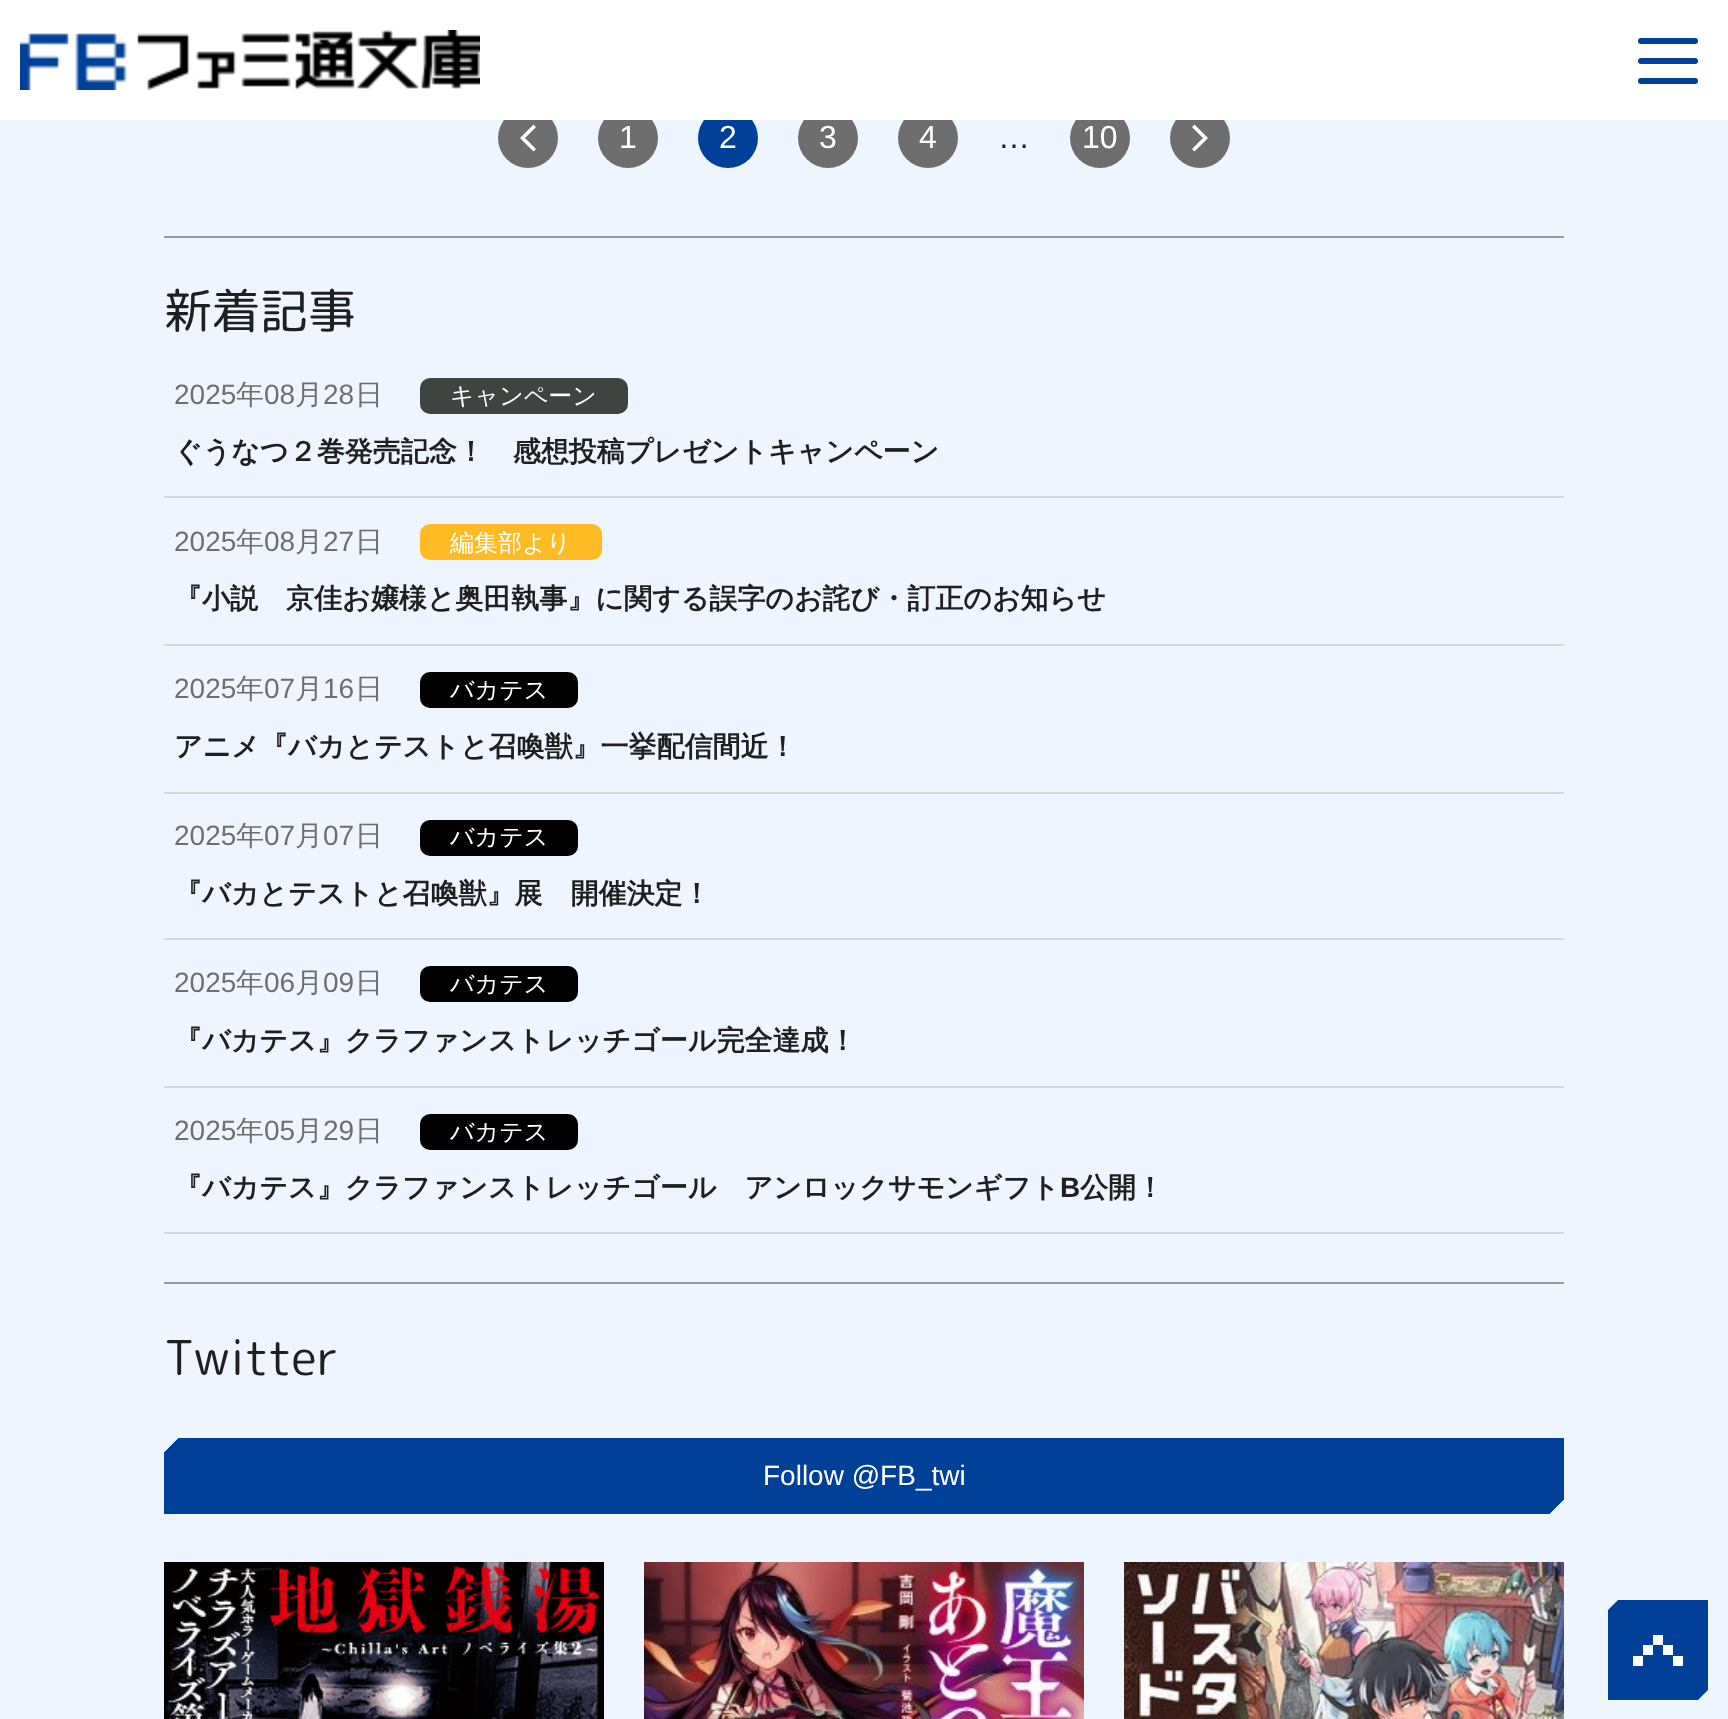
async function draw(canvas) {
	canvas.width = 1728;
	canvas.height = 1719;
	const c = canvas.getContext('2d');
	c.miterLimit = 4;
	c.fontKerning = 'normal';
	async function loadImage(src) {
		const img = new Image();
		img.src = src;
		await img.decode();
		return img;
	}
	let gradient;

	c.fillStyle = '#eef5ff';
	c.fillRect(0, 0, 1728, 1719);
	c.fillStyle = '#6e6e6e';
	c.beginPath();
	c.arc(528, 138, 30, 0, 2 * Math.PI);
	c.fill();
	c.beginPath();
	c.arc(628, 138, 30, 0, 2 * Math.PI);
	c.fill();
	c.fillStyle = '#014099';
	c.beginPath();
	c.arc(728, 138, 30, 0, 2 * Math.PI);
	c.fill();
	c.fillStyle = '#6e6e6e';
	c.beginPath();
	c.arc(828, 138, 30, 0, 2 * Math.PI);
	c.fill();
	c.beginPath();
	c.arc(928, 138, 30, 0, 2 * Math.PI);
	c.fill();
	c.beginPath();
	c.arc(1100, 138, 30, 0, 2 * Math.PI);
	c.fill();
	c.beginPath();
	c.arc(1200, 138, 30, 0, 2 * Math.PI);
	c.fill();
	c.fillStyle = '#fff';
	c.fillRect(0, 0, 1728, 120);
	c.drawImage(await loadImage('img1.png'), 20, 30, 460, 60);
	c.fillStyle = '#014099';
	c.beginPath();
	c.roundRect(1638, 58, 60, 6, 3);
	c.fill();
	c.beginPath();
	c.roundRect(1638, 38, 60, 6, 3);
	c.fill();
	c.beginPath();
	c.roundRect(1638, 78, 60, 6, 3);
	c.fill();
	c.fillStyle = '#fff';
	c.beginPath();
	c.moveTo(536, 127);
	c.lineTo(533.5, 124.5);
	c.lineTo(520, 138);
	c.lineTo(533.5, 151.5);
	c.lineTo(536, 149);
	c.lineTo(525, 138);
	c.closePath();
	c.fill('evenodd');
	c.font = '32px Liberation Sans';
	for (const [text, x, y] of [
		['1', 619, 148],
		['2', 719, 148],
		['3', 819, 148],
		['4', 919, 148],
	]) {
		c.fillText(text, x, y);
	}
	c.fillStyle = '#1f1f1f';
	c.fillText('…', 998, 148);
	c.fillStyle = '#fff';
	c.fillText('10', 1082, 148);
	c.beginPath();
	c.moveTo(1192, 127);
	c.lineTo(1194.5, 124.5);
	c.lineTo(1208, 138);
	c.lineTo(1194.5, 151.5);
	c.lineTo(1192, 149);
	c.lineTo(1203, 138);
	c.closePath();
	c.fill('evenodd');
	c.fillStyle = '#999';
	c.fillRect(164, 236, 1400, 2);
	c.font = '48px "Rounded Mplus 1c"';
	c.fillStyle = '#1f1f1f';
	c.fillText('新着記事', 164, 328);
	c.fillStyle = '#d8d8d8';
	c.fillRect(164, 496, 1400, 2);
	c.font = '28px Liberation Sans';
	c.fillStyle = '#6e6e6e';
	c.fillText('2025', 174, 404);
	c.font = '500 28px WenQuanYi Zen Hei';
	c.fillText('年', 236, 404);
	c.font = '28px Liberation Sans';
	c.fillText('08', 264, 404);
	c.font = '500 28px WenQuanYi Zen Hei';
	c.fillText('月', 295, 404);
	c.font = '28px Liberation Sans';
	c.fillText('28', 323, 404);
	c.font = '500 28px WenQuanYi Zen Hei';
	c.fillText('日', 355, 404);
	c.fillStyle = '#404441';
	c.beginPath();
	c.roundRect(420, 378, 208, 36, 10);
	c.fill();
	c.font = '500 24px WenQuanYi Zen Hei';
	c.fillStyle = '#fff';
	c.fillText('キャンペーン', 450, 404);
	c.font = 'bold 28px WenQuanYi Zen Hei';
	c.fillStyle = '#1f1f1f';
	c.fillText('ぐうなつ２巻発売記念！　感想投稿プレゼントキャンペーン', 174, 461);
	c.fillStyle = '#d8d8d8';
	c.fillRect(164, 644, 1400, 2);
	c.font = '28px Liberation Sans';
	c.fillStyle = '#6e6e6e';
	c.fillText('2025', 174, 551);
	c.font = '500 28px WenQuanYi Zen Hei';
	c.fillText('年', 236, 551);
	c.font = '28px Liberation Sans';
	c.fillText('08', 264, 551);
	c.font = '500 28px WenQuanYi Zen Hei';
	c.fillText('月', 295, 551);
	c.font = '28px Liberation Sans';
	c.fillText('27', 323, 551);
	c.font = '500 28px WenQuanYi Zen Hei';
	c.fillText('日', 355, 551);
	c.fillStyle = '#ffbb24';
	c.beginPath();
	c.roundRect(420, 524, 182, 36, 10);
	c.fill();
	c.font = '500 24px WenQuanYi Zen Hei';
	c.fillStyle = '#fff';
	c.fillText('編集部より', 450, 551);
	c.font = 'bold 28px WenQuanYi Zen Hei';
	c.fillStyle = '#1f1f1f';
	c.fillText('『小説　京佳お嬢様と奥田執事』に関する誤字のお詫び・訂正のお知らせ', 174, 608);
	c.fillStyle = '#d8d8d8';
	c.fillRect(164, 792, 1400, 2);
	c.font = '28px Liberation Sans';
	c.fillStyle = '#6e6e6e';
	c.fillText('2025', 174, 698);
	c.font = '500 28px WenQuanYi Zen Hei';
	c.fillText('年', 236, 698);
	c.font = '28px Liberation Sans';
	c.fillText('07', 264, 698);
	c.font = '500 28px WenQuanYi Zen Hei';
	c.fillText('月', 295, 698);
	c.font = '28px Liberation Sans';
	c.fillText('16', 323, 698);
	c.font = '500 28px WenQuanYi Zen Hei';
	c.fillText('日', 355, 698);
	c.fillStyle = '#000';
	c.beginPath();
	c.roundRect(420, 672, 158, 36, 10);
	c.fill();
	c.font = '500 24px WenQuanYi Zen Hei';
	c.fillStyle = '#fff';
	c.fillText('バカテス', 450, 698);
	c.font = 'bold 28px WenQuanYi Zen Hei';
	c.fillStyle = '#1f1f1f';
	c.fillText('アニメ『バカとテストと召喚獣』一挙配信間近！', 174, 756);
	c.fillStyle = '#d8d8d8';
	c.fillRect(164, 938, 1400, 2);
	c.font = '28px Liberation Sans';
	c.fillStyle = '#6e6e6e';
	c.fillText('2025', 174, 845);
	c.font = '500 28px WenQuanYi Zen Hei';
	c.fillText('年', 236, 845);
	c.font = '28px Liberation Sans';
	c.fillText('07', 264, 845);
	c.font = '500 28px WenQuanYi Zen Hei';
	c.fillText('月', 295, 845);
	c.font = '28px Liberation Sans';
	c.fillText('07', 323, 845);
	c.font = '500 28px WenQuanYi Zen Hei';
	c.fillText('日', 355, 845);
	c.fillStyle = '#000';
	c.beginPath();
	c.roundRect(420, 820, 158, 36, 10);
	c.fill();
	c.font = '500 24px WenQuanYi Zen Hei';
	c.fillStyle = '#fff';
	c.fillText('バカテス', 450, 845);
	c.font = 'bold 28px WenQuanYi Zen Hei';
	c.fillStyle = '#1f1f1f';
	c.fillText('『バカとテストと召喚獣』展　開催決定！', 174, 903);
	c.fillStyle = '#d8d8d8';
	c.fillRect(164, 1086, 1400, 2);
	c.font = '28px Liberation Sans';
	c.fillStyle = '#6e6e6e';
	c.fillText('2025', 174, 992);
	c.font = '500 28px WenQuanYi Zen Hei';
	c.fillText('年', 236, 992);
	c.font = '28px Liberation Sans';
	c.fillText('06', 264, 992);
	c.font = '500 28px WenQuanYi Zen Hei';
	c.fillText('月', 295, 992);
	c.font = '28px Liberation Sans';
	c.fillText('09', 323, 992);
	c.font = '500 28px WenQuanYi Zen Hei';
	c.fillText('日', 355, 992);
	c.fillStyle = '#000';
	c.beginPath();
	c.roundRect(420, 966, 158, 36, 10);
	c.fill();
	c.font = '500 24px WenQuanYi Zen Hei';
	c.fillStyle = '#fff';
	c.fillText('バカテス', 450, 992);
	c.font = 'bold 28px WenQuanYi Zen Hei';
	c.fillStyle = '#1f1f1f';
	c.fillText('『バカテス』クラファンストレッチゴール完全達成！', 174, 1050);
	c.fillStyle = '#d8d8d8';
	c.fillRect(164, 1232, 1400, 2);
	c.font = '28px Liberation Sans';
	c.fillStyle = '#6e6e6e';
	c.fillText('2025', 174, 1140);
	c.font = '500 28px WenQuanYi Zen Hei';
	c.fillText('年', 236, 1140);
	c.font = '28px Liberation Sans';
	c.fillText('05', 264, 1140);
	c.font = '500 28px WenQuanYi Zen Hei';
	c.fillText('月', 295, 1140);
	c.font = '28px Liberation Sans';
	c.fillText('29', 323, 1140);
	c.font = '500 28px WenQuanYi Zen Hei';
	c.fillText('日', 355, 1140);
	c.fillStyle = '#000';
	c.beginPath();
	c.roundRect(420, 1114, 158, 36, 10);
	c.fill();
	c.font = '500 24px WenQuanYi Zen Hei';
	c.fillStyle = '#fff';
	c.fillText('バカテス', 450, 1140);
	c.font = 'bold 28px WenQuanYi Zen Hei';
	c.fillStyle = '#1f1f1f';
	c.fillText('『バカテス』クラファンストレッチゴール　アンロックサモンギフト', 174, 1197);
	c.font = 'bold 28px Liberation Sans';
	c.fillText('B', 1060, 1197);
	c.font = 'bold 28px WenQuanYi Zen Hei';
	c.fillText('公開！', 1080, 1197);
	c.fillStyle = '#999';
	c.fillRect(164, 1282, 1400, 2);
	c.font = '48px "Rounded Mplus 1c"';
	c.fillStyle = '#1f1f1f';
	c.fillText('Twitter', 164, 1375);
	gradient = c.createLinearGradient(333, 1269, 709, 1646);
	gradient.addColorStop(0.02, '#eef5ff');
	gradient.addColorStop(0.02, '#014099');
	c.fillStyle = gradient;
	c.fillRect(164, 1438, 686, 38);
	gradient = c.createLinearGradient(1395, 1269, 1019, 1646);
	gradient.addColorStop(0, '#01409900');
	gradient.addColorStop(0, '#014099');
	c.fillStyle = gradient;
	c.fillRect(850, 1438, 714, 38);
	gradient = c.createLinearGradient(1395, 1683, 1019, 1306);
	gradient.addColorStop(0.02, '#eef5ff');
	gradient.addColorStop(0.02, '#014099');
	c.fillStyle = gradient;
	c.fillRect(878, 1476, 686, 38);
	gradient = c.createLinearGradient(333, 1683, 709, 1306);
	gradient.addColorStop(0, '#01409900');
	gradient.addColorStop(0, '#014099');
	c.fillStyle = gradient;
	c.fillRect(164, 1476, 714, 38);
	c.font = '28px Liberation Sans';
	c.fillStyle = '#fff';
	c.fillText('Follow @FB_twi', 763, 1485);
	c.drawImage(await loadImage('img2.png'), 164, 1562, 440, 157);
	c.drawImage(await loadImage('img3.png'), 644, 1562, 440, 157);
	c.drawImage(await loadImage('img4.png'), 1124, 1562, 440, 157);
	c.drawImage(await loadImage('img5.png'), 1608, 1600, 100, 100);
}

draw(document.querySelector('canvas'));
